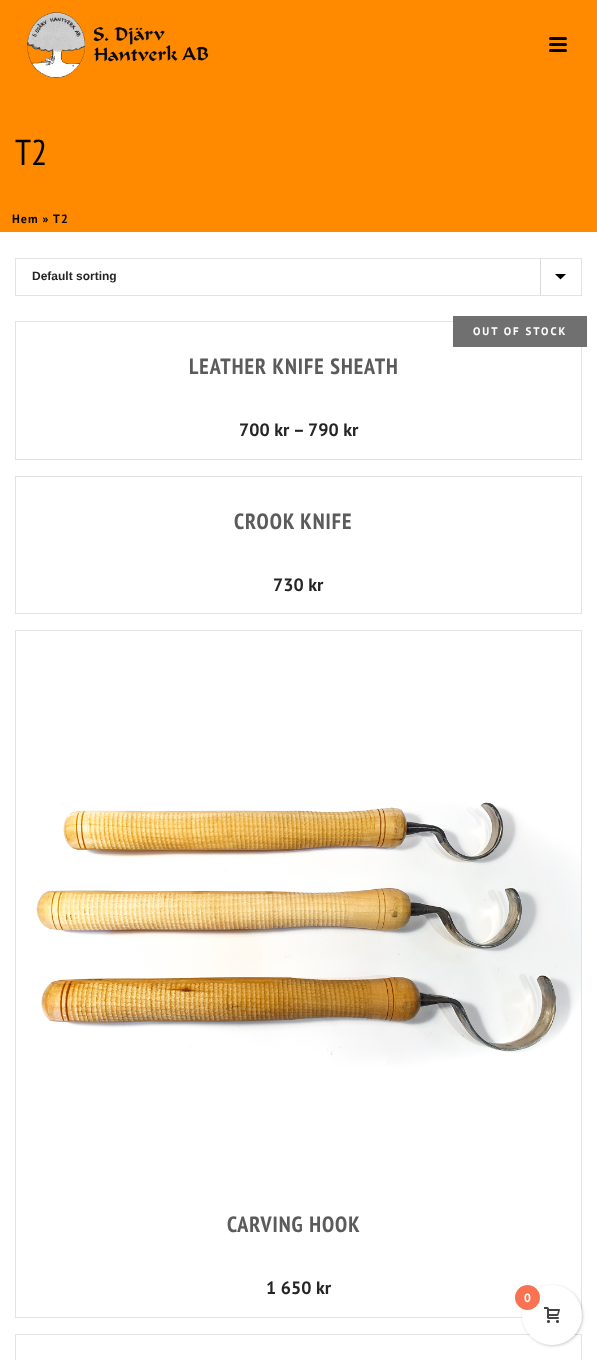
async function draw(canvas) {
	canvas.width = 597;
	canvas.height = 1360;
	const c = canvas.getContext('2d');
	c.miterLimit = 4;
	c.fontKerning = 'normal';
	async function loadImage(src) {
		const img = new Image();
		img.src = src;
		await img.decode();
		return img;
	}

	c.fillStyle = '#fff';
	c.fillRect(0, 0, 597, 1360);
	c.fillStyle = '#ff8a00';
	c.fillRect(0, 0, 597, 232);
	c.drawImage(await loadImage('img1.png'), 27, 12, 182, 66);
	c.fillStyle = '#000';
	c.beginPath();
	c.roundRect(549, 37, 18, 3, 1.5);
	c.fill();
	c.beginPath();
	c.roundRect(549, 43, 18, 3, 1.5);
	c.fill();
	c.beginPath();
	c.roundRect(549, 49, 18, 3, 1.5);
	c.fill();
	c.font = '36px PT Sans Narrow';
	c.fillText('T2', 15, 165);
	c.letterSpacing = '1px';
	c.font = 'bold 12px PT Sans';
	c.fillText('Hem » T2', 12, 223);
	c.drawImage(await loadImage('img2.png'), 540, 259, 26, 36);
	c.strokeStyle = '#e3e3e3';
	c.strokeRect(15.5, 258.5, 566, 37);
	c.letterSpacing = '0px';
	c.font = 'bold 12px Liberation Sans';
	c.fillStyle = '#252525';
	c.fillText('Default sorting', 32, 280);
	c.strokeRect(15.5, 321.5, 566, 138);
	c.fillStyle = '#707070';
	c.fillRect(453, 316, 134, 31);
	c.letterSpacing = '2px';
	c.font = 'bold 11px PT Sans';
	c.fillStyle = '#fff';
	c.fillText('OUT OF STOCK', 473, 335);
	c.letterSpacing = '1px';
	c.font = 'bold 22px PT Sans Narrow';
	c.fillStyle = '#5b5b5b';
	c.fillText('LEATHER KNIFE SHEATH', 189, 374);
	c.letterSpacing = '0px';
	c.font = 'bold 18px PT Sans';
	c.fillStyle = '#252525';
	for (const [text, x, y] of [
		['700 kr', 239, 436],
		['–', 293, 436],
		['790 kr', 308, 436],
	]) {
		c.fillText(text, x, y);
	}
	c.strokeRect(15.5, 476.5, 566, 137);
	c.letterSpacing = '1px';
	c.font = 'bold 22px PT Sans Narrow';
	c.fillStyle = '#5b5b5b';
	c.fillText('CROOK KNIFE', 234, 529);
	c.letterSpacing = '0px';
	c.font = 'bold 18px PT Sans';
	c.fillStyle = '#252525';
	c.fillText('730 kr', 273, 591);
	c.strokeRect(15.5, 630.5, 566, 687);
	c.drawImage(await loadImage('img3.png'), 36, 802, 545, 283);
	c.letterSpacing = '1px';
	c.font = 'bold 22px PT Sans Narrow';
	c.fillStyle = '#5b5b5b';
	c.fillText('CARVING HOOK', 227, 1232);
	c.letterSpacing = '0px';
	c.font = 'bold 18px PT Sans';
	c.fillStyle = '#252525';
	c.fillText('1 650 kr', 266, 1294);
	c.strokeRect(15.5, 1334.5, 566, 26);
	c.fillStyle = '#00000033';
	c.filter = 'blur(1.5px)';
	c.beginPath();
	c.roundRect(523, 1286, 60, 60, 30);
	c.fill();
	c.filter = 'none';
	c.fillStyle = '#fff';
	c.beginPath();
	c.arc(552, 1315, 30, 0, 2 * Math.PI);
	c.fill();
	c.fillStyle = '#f97352';
	c.beginPath();
	c.arc(527.5, 1297.5, 12.5, 0, 2 * Math.PI);
	c.fill();
	c.font = 'bold 12px PT Sans';
	c.fillStyle = '#fff';
	c.fillText('0', 524, 1302);
	c.drawImage(await loadImage('img4.png'), 544, 1307, 16, 16);
}

draw(document.querySelector('canvas'));
